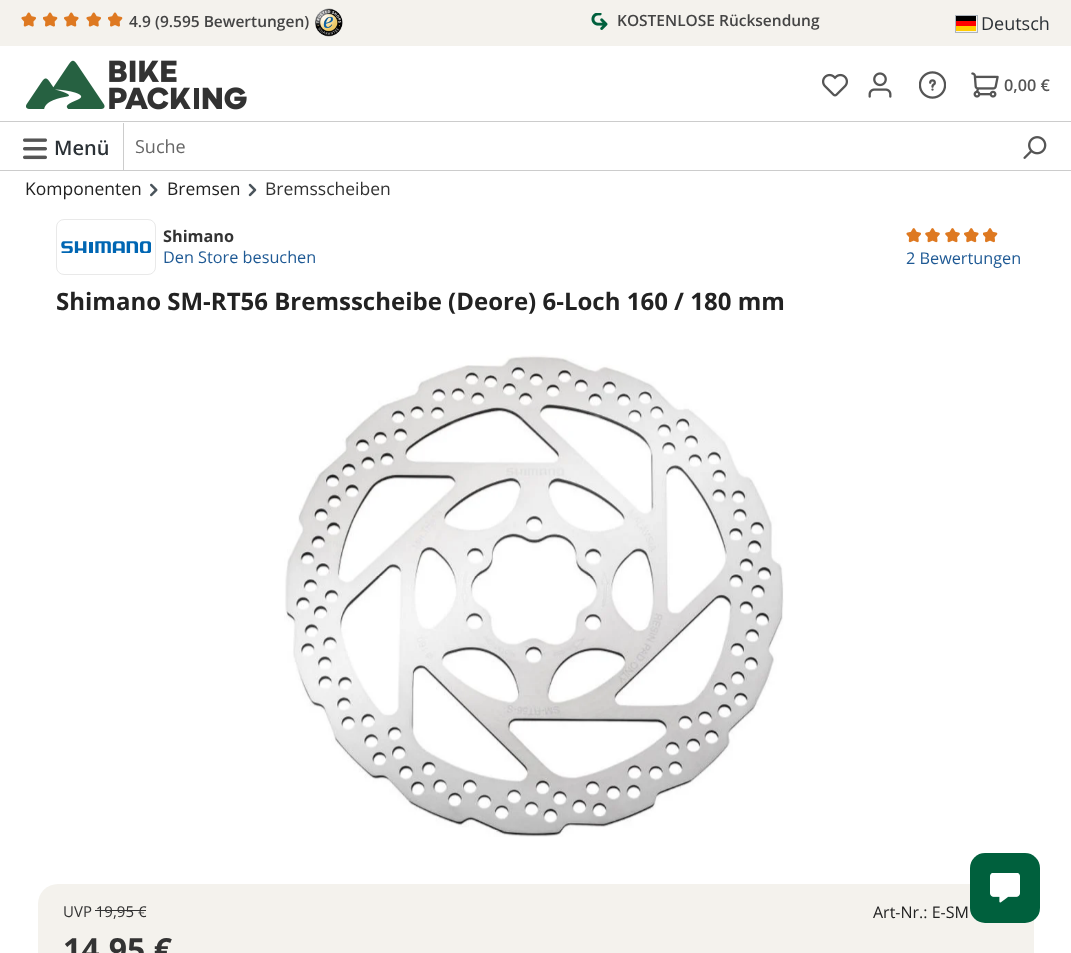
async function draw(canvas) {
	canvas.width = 1071;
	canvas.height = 953;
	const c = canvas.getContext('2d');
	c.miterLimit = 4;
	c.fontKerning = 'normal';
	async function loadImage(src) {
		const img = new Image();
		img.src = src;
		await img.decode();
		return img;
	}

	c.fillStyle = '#fff';
	c.fillRect(0, 0, 1071, 953);
	c.fillStyle = '#f4f2ed';
	c.fillRect(0, 0, 1071, 46);
	c.drawImage(await loadImage('img1.png'), 21, 12, 15, 15);
	c.drawImage(await loadImage('img2.png'), 43, 12, 15, 15);
	c.drawImage(await loadImage('img3.png'), 64, 12, 15, 15);
	c.drawImage(await loadImage('img1.png'), 86, 12, 15, 15);
	c.drawImage(await loadImage('img2.png'), 108, 12, 15, 15);
	c.font = '600 15.5px Open Sans';
	c.fillStyle = '#444';
	c.fillText('4.9 (9.595 Bewertungen)', 129, 27);
	c.drawImage(await loadImage('img4.png'), 315, 8, 28, 29);
	c.drawImage(await loadImage('img5.png'), 591, 13, 17, 17);
	c.fillText('KOSTENLOSE Rücksendung', 617, 26);
	for (const [x, y, w, h, color] of [
		[956, 16, 20, 5, '#000'],
		[956, 21, 20, 5, '#f00'],
		[956, 26, 20, 5, '#fc0'],
	]) {
		c.fillStyle = color;
		c.fillRect(x, y, w, h);
	}
	c.strokeStyle = '#adb5bd';
	c.strokeRect(955.5, 15.5, 22, 17);
	c.font = '18px Open Sans';
	c.fillStyle = '#2b3136';
	c.fillText('Deutsch', 981, 30);
	c.drawImage(await loadImage('img6.png'), 26, 60, 221, 50);
	c.drawImage(await loadImage('img7.png'), 822, 73, 26, 24);
	c.drawImage(await loadImage('img8.png'), 868, 72, 24, 26);
	c.drawImage(await loadImage('img9.png'), 919, 71, 27, 28);
	c.drawImage(await loadImage('img10.png'), 971, 72, 28, 26);
	c.font = '600 16.25px Open Sans';
	c.fillStyle = '#555';
	c.fillText('0,00 €', 1004, 91);
	c.fillStyle = '#ccc';
	c.fillRect(0, 121, 1071, 1);
	c.fillRect(0, 170, 1071, 1);
	c.drawImage(await loadImage('img11.png'), 23, 138, 24, 22);
	c.font = '600 20px Open Sans';
	c.fillStyle = '#2b3136';
	c.fillText('Menü', 54, 155);
	c.fillStyle = '#ccc';
	c.fillRect(123, 123, 1, 47);
	c.font = '18px Open Sans';
	c.fillStyle = '#666';
	c.fillText('Suche', 135, 153);
	c.drawImage(await loadImage('img12.png'), 1023, 136, 24, 23);
	c.font = '17.5px Open Sans';
	c.fillStyle = '#222';
	c.fillText('Komponenten', 25, 195);
	c.drawImage(await loadImage('img13.png'), 150, 183, 8, 14);
	c.fillText('Bremsen', 167, 195);
	c.drawImage(await loadImage('img14.png'), 248, 183, 9, 14);
	c.fillStyle = '#333';
	c.fillText('Bremsscheiben', 265, 195);
	c.beginPath();
	c.roundRect(56.5, 219.5, 99, 55, 7.5);
	c.strokeStyle = '#e9e9e9';
	c.stroke();
	c.drawImage(await loadImage('img15.png'), 61, 241, 90, 12);
	c.font = 'bold 16.25px Open Sans';
	c.fillText('Shimano', 163, 242);
	c.font = '16.25px Open Sans';
	c.fillStyle = '#1e5994';
	c.fillText('Den Store besuchen', 163, 263);
	c.font = 'bold 24px Open Sans';
	c.fillStyle = '#222';
	c.fillText('Shimano SM-RT56 Bremsscheibe (Deore) 6-Loch 160 / 180 mm', 56, 310);
	c.drawImage(await loadImage('img16.png'), 906, 228, 15, 15);
	c.drawImage(await loadImage('img17.png'), 925, 228, 15, 15);
	c.drawImage(await loadImage('img17.png'), 945, 228, 15, 15);
	c.drawImage(await loadImage('img18.png'), 964, 228, 15, 15);
	c.drawImage(await loadImage('img19.png'), 983, 228, 15, 15);
	c.font = '16.25px Open Sans';
	c.fillStyle = '#1e5994';
	c.fillText('2 Bewertungen', 906, 264);
	c.fillStyle = '#f4f2ed';
	c.beginPath();
	c.roundRect(38, 884, 996, 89, 20);
	c.fill();
	c.font = '15px Open Sans';
	c.fillStyle = '#333';
	c.fillText('UVP 19,95 €', 63, 917);
	c.fillRect(95, 910, 51, 1);
	c.font = 'bold 32px Open Sans';
	c.fillText('14,95 €', 63, 961);
	c.font = '16px Open Sans';
	c.fillStyle = '#222';
	c.fillText('Art-Nr.: E-SM', 873, 918);
	c.drawImage(await loadImage('img20.png'), 284, 355, 500, 482);
	c.fillStyle = '#00603d';
	c.beginPath();
	c.roundRect(970, 853, 70, 70, 15);
	c.fill();
	c.drawImage(await loadImage('img21.png'), 990, 873, 30, 30);
}

draw(document.querySelector('canvas'));
